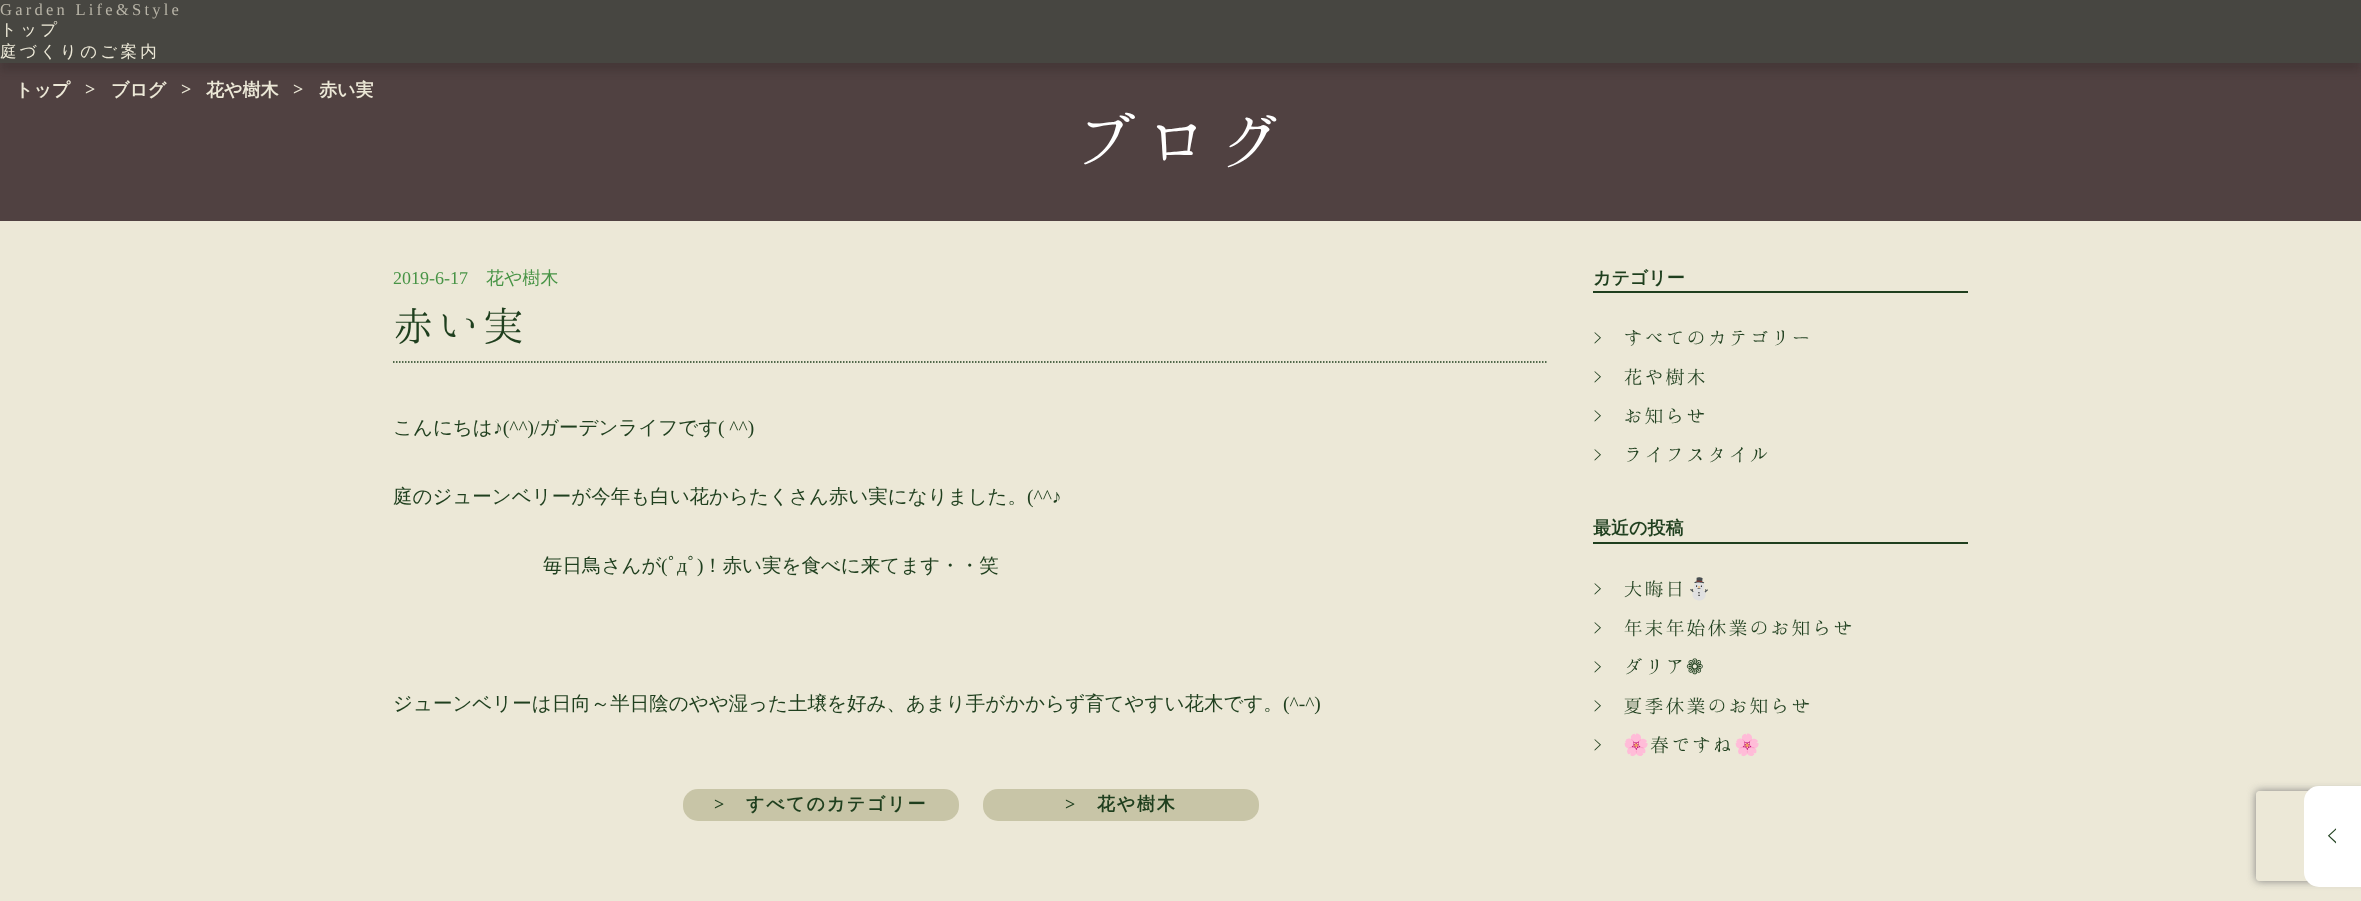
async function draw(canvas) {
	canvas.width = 2361;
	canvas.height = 901;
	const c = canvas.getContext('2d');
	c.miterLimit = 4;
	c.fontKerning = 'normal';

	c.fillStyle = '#ece8d7';
	c.fillRect(0, 0, 2361, 901);
	c.fillStyle = '#504141';
	c.fillRect(0, 63, 2361, 158);
	c.fillStyle = '#18141433';
	c.filter = 'blur(4.5px)';
	c.beginPath();
	c.rect(0, 8, 2361, 63);
	c.fill();
	c.filter = 'none';
	c.fillStyle = '#474641';
	c.fillRect(0, 0, 2361, 63);
	c.letterSpacing = '3.25px';
	c.font = '16.5px Liberation Serif';
	c.fillStyle = '#b8b4a7';
	c.fillText('Garden Life&Style', 0, 15);
	c.font = '500 16.5px WenQuanYi Zen Hei';
	c.fillStyle = '#ece8d7';
	c.fillText('トップ', 0, 35);
	c.fillText('庭づくりのご案内', 0, 57);
	c.letterSpacing = '0px';
	c.font = 'bold 18px WenQuanYi Zen Hei';
	c.fillText('トップ', 15, 96);
	c.font = 'bold 18px Liberation Serif';
	c.fillText('>', 85, 95);
	c.font = 'bold 18px WenQuanYi Zen Hei';
	c.fillText('ブログ', 111, 96);
	c.font = 'bold 18px Liberation Serif';
	c.fillText('>', 181, 95);
	c.font = 'bold 18px WenQuanYi Zen Hei';
	c.fillText('花や樹木', 206, 96);
	c.font = 'bold 18px Liberation Serif';
	c.fillText('>', 293, 95);
	c.font = 'bold 18px WenQuanYi Zen Hei';
	c.fillText('赤い実', 319, 96);
	c.font = '72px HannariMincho';
	c.fillStyle = '#fff';
	c.fillText('ブログ', 1072, 167);
	c.font = '18px Liberation Serif';
	c.fillStyle = '#489446';
	c.fillText('2019-6-17', 393, 284);
	c.font = '500 18px WenQuanYi Zen Hei';
	c.fillText('花や樹木', 486, 284);
	c.beginPath();
	c.moveTo(393, 362);
	c.lineTo(1548, 362);
	c.strokeStyle = '#1f3f1e';
	c.lineWidth = 1.5;
	c.setLineDash([1.5, 1.5]);
	c.stroke();
	c.font = '45px HannariMincho';
	c.fillStyle = '#1f3f1e';
	c.fillText('赤い実', 393, 341);
	c.font = '500 19.5px WenQuanYi Zen Hei';
	c.fillText('こんにちは', 393, 434);
	c.font = '19.5px Liberation Serif';
	c.fillText('♪(^^)/', 493, 434);
	c.font = '500 19.5px WenQuanYi Zen Hei';
	c.fillText('ガーデンライフです', 539, 434);
	c.font = '19.5px Liberation Serif';
	c.fillText('( ^^)', 718, 434);
	c.font = '500 19.5px WenQuanYi Zen Hei';
	c.fillText('庭のジューンベリーが今年も白い花からたくさん赤い実になりました。', 393, 503);
	c.font = '19.5px Liberation Serif';
	c.fillText('(^^♪', 1027, 503);
	c.font = '500 19.5px WenQuanYi Zen Hei';
	c.fillText('毎日鳥さんが', 543, 572);
	c.font = '19.5px Liberation Serif';
	c.fillText('(', 661, 572);
	c.font = '19.5px IPAGothic';
	c.fillText('ﾟ ﾟ', 668, 572);
	c.font = '19.5px Liberation Serif';
	c.fillText(')', 697, 572);
	c.font = '500 19.5px WenQuanYi Zen Hei';
	c.fillText('！赤い実を食べに来てます・・笑', 703, 572);
	c.font = '19.5px Liberation Serif';
	c.fillText('д', 677, 572);
	c.font = '500 19.5px WenQuanYi Zen Hei';
	c.fillText('ジューンベリーは日向～半日陰のやや湿った土壌を好み、あまり手がかからず育てやすい花木です。', 393, 710);
	c.font = '19.5px Liberation Serif';
	c.fillText('(^-^)', 1283, 710);
	c.fillStyle = '#c8c5a7';
	c.beginPath();
	c.roundRect(683, 789, 276, 32, 15);
	c.fill();
	c.letterSpacing = '1.75px';
	c.font = 'bold 18px Liberation Serif';
	c.fillStyle = '#1f3f1e';
	c.fillText('>', 714, 810);
	c.font = 'bold 18px WenQuanYi Zen Hei';
	c.fillText('すべてのカテゴリー', 746, 810);
	c.fillStyle = '#c8c5a7';
	c.beginPath();
	c.roundRect(983, 789, 276, 32, 15);
	c.fill();
	c.font = 'bold 18px Liberation Serif';
	c.fillStyle = '#1f3f1e';
	c.fillText('>', 1065, 810);
	c.font = 'bold 18px WenQuanYi Zen Hei';
	c.fillText('花や樹木', 1097, 810);
	c.fillRect(1593, 291, 375, 2);
	c.letterSpacing = '0px';
	c.fillText('カテゴリー', 1593, 284);
	c.font = '21px HannariMincho';
	for (const [text, x, y] of [
		['> すべてのカテゴリー', 1593, 345],
		['> 花や樹木', 1593, 384],
		['> お知らせ', 1593, 423],
		['> ライフスタイル', 1593, 462],
	]) {
		c.fillText(text, x, y);
	}
	c.fillRect(1593, 542, 375, 2);
	c.font = 'bold 18px WenQuanYi Zen Hei';
	c.fillText('最近の投稿', 1593, 534);
	c.font = '21px HannariMincho';
	c.fillText('> 大晦日', 1593, 596);
	c.font = '21px Noto Color Emoji';
	c.fillText('⛄', 1686, 596);
	c.font = '21px HannariMincho';
	c.fillText('> 年末年始休業のお知らせ', 1593, 635);
	c.fillText('> ダリア', 1593, 674);
	c.font = '21px DejaVu Sans';
	c.fillText('❁', 1686, 674);
	c.font = '21px HannariMincho';
	c.fillText('> 夏季休業のお知らせ', 1593, 713);
	c.fillText('>', 1593, 752);
	c.font = '21px Noto Color Emoji';
	c.fillText('🌸', 1623, 752);
	c.font = '21px HannariMincho';
	c.fillText('春ですね', 1650, 752);
	c.font = '21px Noto Color Emoji';
	c.fillText('🌸', 1734, 752);
	c.save();
	c.beginPath();
	c.moveTo(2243, 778);
	c.lineTo(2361, 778);
	c.lineTo(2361, 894);
	c.lineTo(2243, 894);
	c.closePath();
	c.moveTo(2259, 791);
	c.lineTo(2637, 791);
	c.bezierCurveTo(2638.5, 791, 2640, 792.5, 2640, 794);
	c.lineTo(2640, 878);
	c.bezierCurveTo(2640, 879.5, 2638.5, 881, 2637, 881);
	c.lineTo(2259, 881);
	c.bezierCurveTo(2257.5, 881, 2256, 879.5, 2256, 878);
	c.lineTo(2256, 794);
	c.bezierCurveTo(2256, 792.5, 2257.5, 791, 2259, 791);
	c.closePath();
	c.clip('evenodd');
	c.fillStyle = '#808080';
	c.filter = 'blur(4px)';
	c.beginPath();
	c.roundRect(2256, 791, 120, 90, 3);
	c.fill();
	c.filter = 'none';
	c.restore();
	c.fillStyle = '#fff';
	c.beginPath();
	c.roundRect(2304, 786, 57, 101, [15, 0, 0, 15]);
	c.fill();
	c.font = '27px HannariMincho';
	c.fillStyle = '#1f3f1e';
	c.fillText('<', 2326, 845);
}

draw(document.querySelector('canvas'));
